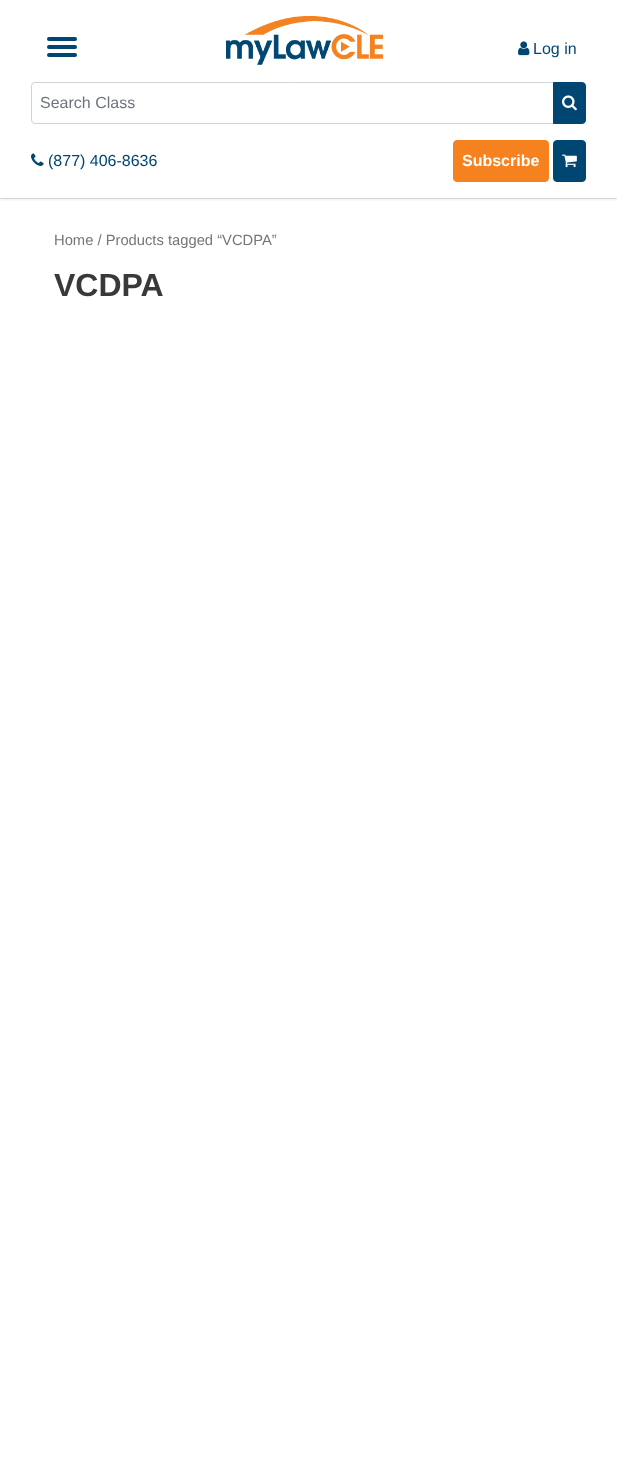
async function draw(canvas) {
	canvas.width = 617;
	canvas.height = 1459;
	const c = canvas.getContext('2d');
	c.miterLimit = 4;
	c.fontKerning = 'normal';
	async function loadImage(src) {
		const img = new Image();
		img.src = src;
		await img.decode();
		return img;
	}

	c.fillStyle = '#fff';
	c.fillRect(0, 0, 617, 1459);
	c.fillStyle = '#dee2e6';
	c.fillRect(0, 198, 617, 1);
	c.save();
	c.beginPath();
	c.rect(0, 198, 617, 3);
	c.clip();
	c.fillStyle = '#00000012';
	c.filter = 'blur(2px)';
	c.beginPath();
	c.rect(0, 2, 617, 198);
	c.fill();
	c.filter = 'none';
	c.restore();
	c.fillStyle = '#004672';
	c.beginPath();
	c.roundRect(47, 45, 30, 4, 2);
	c.fill();
	c.beginPath();
	c.roundRect(47, 37, 30, 4, 2);
	c.fill();
	c.beginPath();
	c.roundRect(47, 53, 30, 4, 2);
	c.fill();
	c.drawImage(await loadImage('img1.png'), 226, 16, 157, 49);
	c.drawImage(await loadImage('img2.png'), 518, 41, 12, 15);
	c.font = '16px Liberation Sans';
	c.fillText('Log in', 533, 54);
	c.beginPath();
	c.roundRect(31.5, 82.5, 522, 41, [3.5, 0, 0, 3.5]);
	c.strokeStyle = '#ced4da';
	c.stroke();
	c.fillStyle = '#6c757d';
	c.fillText('Search Class', 40, 108);
	c.fillStyle = '#004672';
	c.beginPath();
	c.roundRect(553.5, 82.5, 32, 41, [0, 3.5, 3.5, 0]);
	c.fill();
	c.strokeStyle = '#004672';
	c.stroke();
	c.drawImage(await loadImage('img3.png'), 562, 95, 15, 16);
	c.drawImage(await loadImage('img4.png'), 31, 153, 13, 13);
	c.fillText('(877) 406-8636', 48, 166);
	c.fillStyle = '#f5821f';
	c.beginPath();
	c.roundRect(453.5, 140.5, 95, 41, 3.5);
	c.fill();
	c.strokeStyle = '#f5821f';
	c.stroke();
	c.font = 'bold 16px Liberation Sans';
	c.fillStyle = '#fff';
	c.fillText('Subscribe', 462, 166);
	c.fillStyle = '#004672';
	c.beginPath();
	c.roundRect(553.5, 140.5, 32, 41, 3.5);
	c.fill();
	c.strokeStyle = '#004672';
	c.stroke();
	c.drawImage(await loadImage('img5.png'), 562, 154, 15, 14);
	c.font = '14.75px Liberation Sans';
	c.fillStyle = '#767676';
	c.fillText('Home / Products tagged “VCDPA”', 54, 245);
	c.font = 'bold 32px Liberation Sans';
	c.fillStyle = '#3a3939';
	c.fillText('VCDPA', 54, 296);
}

draw(document.querySelector('canvas'));
